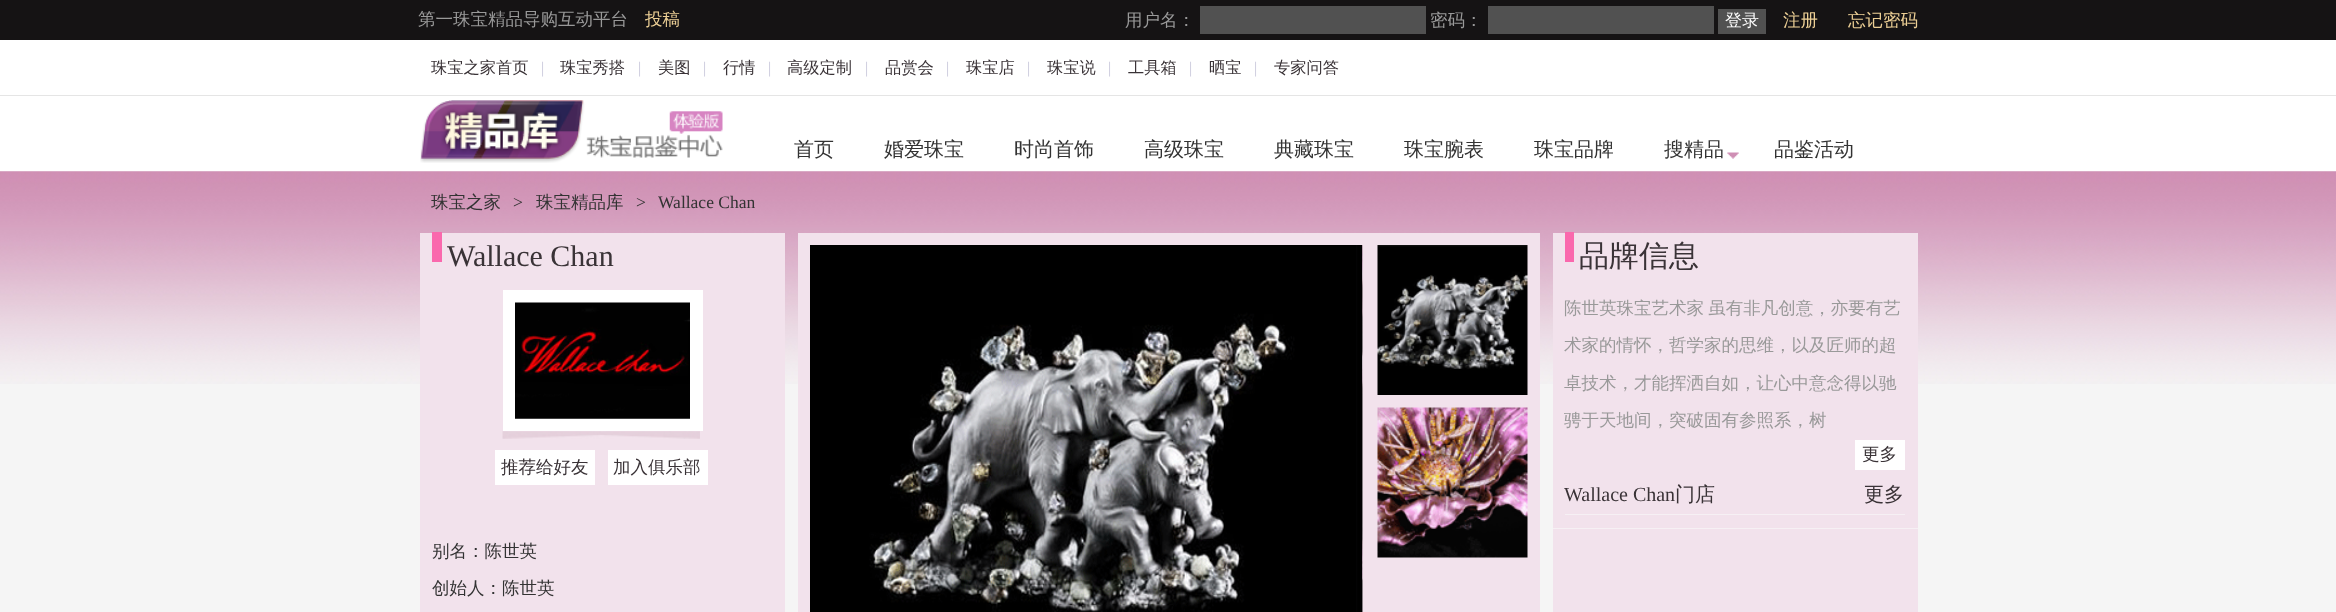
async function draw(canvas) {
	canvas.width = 2336;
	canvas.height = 612;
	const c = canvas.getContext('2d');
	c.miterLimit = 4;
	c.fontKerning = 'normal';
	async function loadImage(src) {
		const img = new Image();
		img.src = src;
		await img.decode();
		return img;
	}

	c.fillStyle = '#f5f5f5';
	c.fillRect(0, 0, 2336, 612);
	c.fillStyle = '#151314';
	c.fillRect(0, 0, 2336, 40);
	c.font = '500 17.5px WenQuanYi Zen Hei';
	c.fillStyle = '#999';
	c.fillText('第一珠宝精品导购互动平台', 418, 25);
	c.fillStyle = '#eccf95';
	c.fillText('投稿', 645, 25);
	c.fillStyle = '#999';
	c.fillText('用户名：', 1125, 26);
	c.fillStyle = '#515151';
	c.fillRect(1200, 6, 226, 28);
	c.fillStyle = '#999';
	c.fillText('密码：', 1430, 26);
	c.fillStyle = '#515151';
	c.fillRect(1488, 6, 226, 28);
	c.fillRect(1718, 9, 48, 25);
	c.font = '500 17px WenQuanYi Zen Hei';
	c.fillStyle = '#fff';
	c.fillText('登录', 1725, 26);
	c.font = '500 17.5px WenQuanYi Zen Hei';
	c.fillStyle = '#eccf95';
	c.fillText('注册', 1783, 26);
	c.fillText('忘记密码', 1848, 26);
	c.fillStyle = '#fff';
	c.fillRect(0, 40, 2336, 55);
	c.fillStyle = '#e5e5e5';
	c.fillRect(0, 95, 2336, 1);
	c.font = '500 16.25px WenQuanYi Zen Hei';
	c.fillStyle = '#3a3337';
	c.fillText('珠宝之家首页', 431, 73);
	c.font = '16.25px Liberation Serif';
	c.fillStyle = '#c7c6da';
	c.fillText('|', 541, 73);
	c.font = '500 16.25px WenQuanYi Zen Hei';
	c.fillStyle = '#3a3337';
	c.fillText('珠宝秀搭', 560, 73);
	c.font = '16.25px Liberation Serif';
	c.fillStyle = '#c7c6da';
	c.fillText('|', 638, 73);
	c.font = '500 16.25px WenQuanYi Zen Hei';
	c.fillStyle = '#3a3337';
	c.fillText('美图', 658, 73);
	c.font = '16.25px Liberation Serif';
	c.fillStyle = '#c7c6da';
	c.fillText('|', 703, 73);
	c.font = '500 16.25px WenQuanYi Zen Hei';
	c.fillStyle = '#3a3337';
	c.fillText('行情', 723, 73);
	c.font = '16.25px Liberation Serif';
	c.fillStyle = '#c7c6da';
	c.fillText('|', 768, 73);
	c.font = '500 16.25px WenQuanYi Zen Hei';
	c.fillStyle = '#3a3337';
	c.fillText('高级定制', 787, 73);
	c.font = '16.25px Liberation Serif';
	c.fillStyle = '#c7c6da';
	c.fillText('|', 865, 73);
	c.font = '500 16.25px WenQuanYi Zen Hei';
	c.fillStyle = '#3a3337';
	c.fillText('品赏会', 885, 73);
	c.font = '16.25px Liberation Serif';
	c.fillStyle = '#c7c6da';
	c.fillText('|', 946, 73);
	c.font = '500 16.25px WenQuanYi Zen Hei';
	c.fillStyle = '#3a3337';
	c.fillText('珠宝店', 966, 73);
	c.font = '16.25px Liberation Serif';
	c.fillStyle = '#c7c6da';
	c.fillText('|', 1027, 73);
	c.font = '500 16.25px WenQuanYi Zen Hei';
	c.fillStyle = '#3a3337';
	c.fillText('珠宝说', 1047, 73);
	c.font = '16.25px Liberation Serif';
	c.fillStyle = '#c7c6da';
	c.fillText('|', 1108, 73);
	c.font = '500 16.25px WenQuanYi Zen Hei';
	c.fillStyle = '#3a3337';
	c.fillText('工具箱', 1128, 73);
	c.font = '16.25px Liberation Serif';
	c.fillStyle = '#c7c6da';
	c.fillText('|', 1189, 73);
	c.font = '500 16.25px WenQuanYi Zen Hei';
	c.fillStyle = '#3a3337';
	c.fillText('晒宝', 1209, 73);
	c.font = '16.25px Liberation Serif';
	c.fillStyle = '#c7c6da';
	c.fillText('|', 1254, 73);
	c.font = '500 16.25px WenQuanYi Zen Hei';
	c.fillStyle = '#3a3337';
	c.fillText('专家问答', 1274, 73);
	c.fillStyle = '#fff';
	c.fillRect(0, 96, 2336, 75);
	c.drawImage(await loadImage('img1.png'), 420, 100, 303, 63);
	c.font = '500 20px WenQuanYi Zen Hei';
	c.fillStyle = '#333';
	for (const [text, x, y] of [
		['首页', 794, 156],
		['婚爱珠宝', 884, 156],
		['时尚首饰', 1014, 156],
		['高级珠宝', 1144, 156],
		['典藏珠宝', 1274, 156],
		['珠宝腕表', 1404, 156],
		['珠宝品牌', 1534, 156],
	]) {
		c.fillText(text, x, y);
	}
	c.drawImage(await loadImage('img2.png'), 1727, 152, 12, 7);
	c.fillText('搜精品', 1664, 156);
	c.fillText('品鉴活动', 1774, 156);
	c.drawImage(await loadImage('img3.png'), 0, 171, 2336, 213);
	c.font = '500 17.5px WenQuanYi Zen Hei';
	c.fillText('珠宝之家', 431, 208);
	c.font = '17.5px Liberation Serif';
	c.fillText('>', 513, 208);
	c.font = '500 17.5px WenQuanYi Zen Hei';
	c.fillText('珠宝精品库', 536, 208);
	c.font = '17.5px Liberation Serif';
	c.fillText('>', 636, 208);
	c.fillText('Wallace Chan', 658, 208);
	c.fillStyle = '#f2e2ec';
	c.fillRect(420, 233, 365, 379);
	c.fillStyle = '#fa68ad';
	c.fillRect(432, 232, 10, 30);
	c.font = '30px Liberation Serif';
	c.fillStyle = '#3a3337';
	c.fillText('Wallace Chan', 447, 266);
	c.strokeStyle = '#fff';
	c.lineWidth = 13;
	c.strokeRect(509.5, 296.5, 187, 128);
	c.drawImage(await loadImage('img4.png'), 515, 302, 175, 117);
	c.drawImage(await loadImage('img5.png'), 502, 431, 198, 8);
	c.fillStyle = '#fff';
	c.fillRect(495, 450, 100, 35);
	c.font = '500 17.5px WenQuanYi Zen Hei';
	c.fillStyle = '#3a3337';
	c.fillText('推荐给好友', 501, 473);
	c.fillStyle = '#fff';
	c.fillRect(608, 450, 100, 35);
	c.fillStyle = '#3a3337';
	c.fillText('加入俱乐部', 613, 473);
	c.fillStyle = '#333';
	c.fillText('别名：陈世英', 432, 557);
	c.fillText('创始人：陈世英', 432, 594);
	c.fillStyle = '#f2e2ec';
	c.fillRect(798, 233, 742, 379);
	c.drawImage(await loadImage('img6.png'), 810, 245, 553, 367);
	c.drawImage(await loadImage('img7.png'), 1362, 245, 1, 367);
	c.drawImage(await loadImage('img8.png'), 1377, 245, 151, 150);
	c.drawImage(await loadImage('img9.png'), 1377, 407, 151, 151);
	c.fillRect(1553, 233, 365, 379);
	c.fillStyle = '#fa68ad';
	c.fillRect(1565, 232, 9, 30);
	c.font = '500 30px WenQuanYi Zen Hei';
	c.fillStyle = '#3a3337';
	c.fillText('品牌信息', 1579, 266);
	c.fillStyle = '#f6f0f4';
	c.fillRect(1553, 528, 365, 1);
	c.wordSpacing = '-1px';
	c.font = '500 17.5px WenQuanYi Zen Hei';
	c.fillStyle = '#999';
	c.fillText('陈世英珠宝艺术家 虽有非凡创意，亦要有艺', 1564, 314);
	c.wordSpacing = '0px';
	for (const [text, x, y] of [
		['术家的情怀，哲学家的思维，以及匠师的超', 1564, 351],
		['卓技术，才能挥洒自如，让心中意念得以驰', 1564, 389],
		['骋于天地间，突破固有参照系，树', 1564, 426],
	]) {
		c.fillText(text, x, y);
	}
	c.fillStyle = '#fff';
	c.fillRect(1855, 440, 50, 30);
	c.fillStyle = '#3a3337';
	c.fillText('更多', 1862, 460);
	c.fillStyle = '#f6f0f4';
	c.fillRect(1565, 514, 340, 1);
	c.font = '20px Liberation Serif';
	c.fillStyle = '#3a3337';
	c.fillText('Wallace Chan', 1564, 501);
	c.font = '500 20px WenQuanYi Zen Hei';
	c.fillText('门店', 1675, 501);
	c.fillText('更多', 1864, 501);
}

draw(document.querySelector('canvas'));
